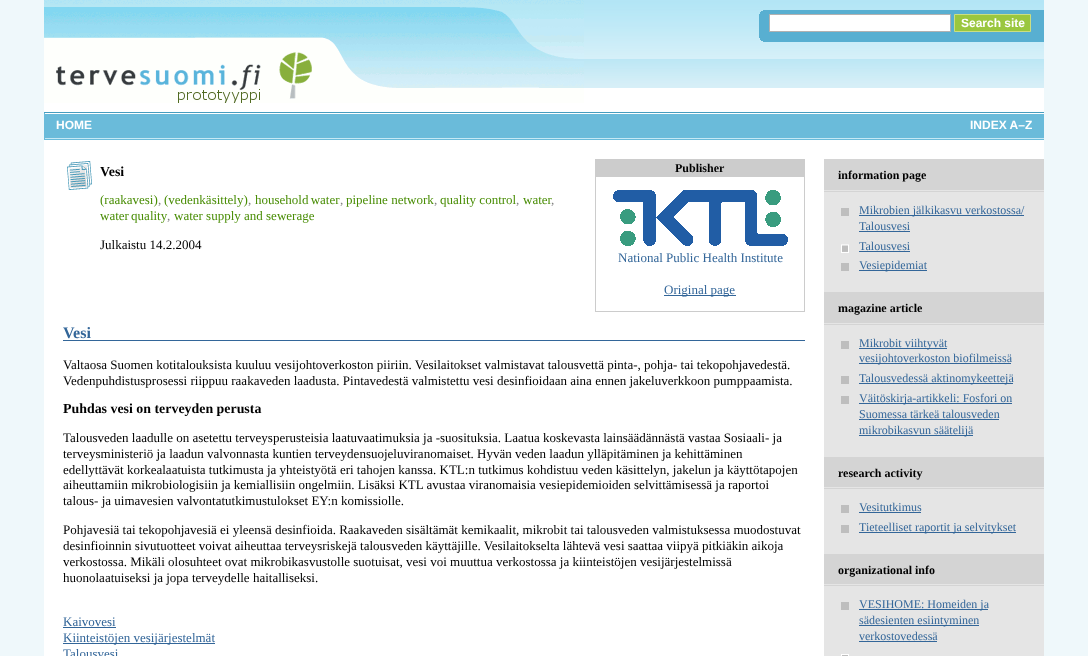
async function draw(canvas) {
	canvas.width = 1088;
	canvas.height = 656;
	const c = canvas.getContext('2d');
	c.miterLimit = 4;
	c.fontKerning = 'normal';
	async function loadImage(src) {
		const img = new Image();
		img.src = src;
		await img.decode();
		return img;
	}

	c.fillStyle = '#eff8fb';
	c.fillRect(0, 0, 1088, 656);
	c.fillStyle = '#fff';
	c.fillRect(44, 88, 1000, 568);
	c.drawImage(await loadImage('img1.png'), 584, 0, 460, 88);
	c.drawImage(await loadImage('img2.png'), 44, 0, 540, 103);
	c.fillStyle = '#58afd1';
	c.fillRect(759, 10, 285, 32);
	c.drawImage(await loadImage('img3.png'), 759, 10, 4, 4);
	c.drawImage(await loadImage('img4.png'), 759, 38, 4, 4);
	c.fillStyle = '#fff';
	c.beginPath();
	c.rect(769.5, 14.5, 181, 17);
	c.fill();
	c.strokeStyle = '#b1b1b1';
	c.stroke();
	c.fillStyle = '#9ac73f';
	c.beginPath();
	c.rect(954.5, 14.5, 76, 17);
	c.fill();
	c.strokeStyle = '#cbde83';
	c.stroke();
	c.font = 'bold 12px Liberation Sans';
	c.fillStyle = '#fff';
	c.fillText('Search site', 961, 27);
	for (const [x, y, w, h, color] of [
		[44, 113, 1000, 27, '#6abbda'],
		[44, 112, 1000, 1, '#469dbf'],
		[45, 113, 999, 1, '#fff'],
		[45, 138, 999, 1, '#c5e9f5'],
	]) {
		c.fillStyle = color;
		c.fillRect(x, y, w, h);
	}
	c.fillStyle = '#fff';
	c.fillText('HOME', 56, 129);
	c.fillText('INDEX A–Z', 970, 129);
	c.drawImage(await loadImage('img5.png'), 67, 161, 25, 29);
	c.font = 'bold 13.9px Liberation Serif';
	c.fillStyle = '#000';
	c.fillText('Vesi', 100, 176);
	c.strokeStyle = '#ccc';
	c.strokeRect(595.5, 159.5, 209, 152);
	c.fillStyle = '#ccc';
	c.fillRect(596, 160, 208, 17);
	c.font = 'bold 12px Liberation Serif';
	c.fillStyle = '#000';
	c.fillText('Publisher', 675, 172);
	c.drawImage(await loadImage('img6.png'), 613, 190, 175, 56);
	c.font = '13px Liberation Serif';
	c.fillStyle = '#369';
	c.fillText('National Public Health Institute', 618, 262);
	c.fillRect(664, 295, 72, 1);
	c.fillText('Original page', 664, 294);
	c.fillStyle = '#498d05';
	c.fillText('(raakavesi)', 100, 204);
	c.fillStyle = '#7f7f7f';
	c.fillText(',', 158, 204);
	c.fillStyle = '#498d05';
	c.fillText('(vedenkäsittely)', 164, 204);
	c.fillStyle = '#7f7f7f';
	c.fillText(',', 248, 204);
	c.wordSpacing = '-1px';
	c.fillStyle = '#498d05';
	c.fillText('household water', 255, 204);
	c.wordSpacing = '0px';
	c.fillStyle = '#7f7f7f';
	c.fillText(',', 340, 204);
	c.fillStyle = '#498d05';
	c.fillText('pipeline network', 346, 204);
	c.fillStyle = '#7f7f7f';
	c.fillText(',', 434, 204);
	c.fillStyle = '#498d05';
	c.fillText('quality control', 440, 204);
	c.fillStyle = '#7f7f7f';
	c.fillText(',', 516, 204);
	c.fillStyle = '#498d05';
	c.fillText('water', 523, 204);
	c.fillStyle = '#7f7f7f';
	c.fillText(',', 551, 204);
	c.wordSpacing = '-1px';
	c.fillStyle = '#498d05';
	c.fillText('water quality', 100, 220);
	c.wordSpacing = '0px';
	c.fillStyle = '#7f7f7f';
	c.fillText(',', 167, 220);
	c.fillStyle = '#498d05';
	c.fillText('water supply and sewerage', 174, 220);
	c.fillStyle = '#000';
	c.fillText('Julkaistu 14.2.2004', 100, 249);
	c.fillStyle = '#369';
	c.fillRect(63, 340, 742, 1);
	c.font = 'bold 16px Liberation Serif';
	c.fillText('Vesi', 63, 338);
	c.font = '13px Liberation Serif';
	c.fillStyle = '#000';
	c.fillText('Valtaosa Suomen kotitalouksista kuuluu vesijohtoverkoston piiriin. Vesilaitokset valmistavat talousvettä pinta-, pohja- tai tekopohjavedestä.', 63, 369);
	c.fillText('Vedenpuhdistusprosessi riippuu raakaveden laadusta. Pintavedestä valmistettu vesi desinfioidaan aina ennen jakeluverkkoon pumppaamista.', 63, 385);
	c.font = 'bold 13.9px Liberation Serif';
	c.fillText('Puhdas vesi on terveyden perusta', 63, 413);
	c.font = '13px Liberation Serif';
	for (const [text, x, y] of [
		['Talousveden laadulle on asetettu terveysperusteisia laatuvaatimuksia ja -suosituksia. Laatua koskevasta lainsäädännästä vastaa Sosiaali- ja', 63, 442],
		['terveysministeriö ja laadun valvonnasta kuntien terveydensuojeluviranomaiset. Hyvän veden laadun ylläpitäminen ja kehittäminen', 63, 458],
		['edellyttävät korkealaatuista tutkimusta ja yhteistyötä eri tahojen kanssa. KTL:n tutkimus kohdistuu veden käsittelyn, jakelun ja käyttötapojen', 63, 474],
		['aiheuttamiin mikrobiologisiin ja kemiallisiin ongelmiin. Lisäksi KTL avustaa viranomaisia vesiepidemioiden selvittämisessä ja raportoi', 63, 489],
		['talous- ja uimavesien valvontatutkimustulokset EY:n komissiolle.', 63, 505],
		['Pohjavesiä tai tekopohjavesiä ei yleensä desinfioida. Raakaveden sisältämät kemikaalit, mikrobit tai talousveden valmistuksessa muodostuvat', 63, 534],
		['desinfioinnin sivutuotteet voivat aiheuttaa terveysriskejä talousveden käyttäjille. Vesilaitokselta lähtevä vesi saattaa viipyä pitkiäkin aikoja', 63, 550],
		['verkostossa. Mikäli olosuhteet ovat mikrobikasvustolle suotuisat, vesi voi muuttua verkostossa ja kiinteistöjen vesijärjestelmissä', 63, 566],
		['huonolaatuiseksi ja jopa terveydelle haitalliseksi.', 63, 582],
	]) {
		c.fillText(text, x, y);
	}
	c.fillStyle = '#369';
	c.fillText('Kaivovesi', 63, 626);
	c.fillRect(63, 627, 53, 1);
	c.fillRect(63, 643, 152, 1);
	c.fillText('Kiinteistöjen vesijärjestelmät', 63, 642);
	c.fillText('Talousvesi', 63, 658);
	c.fillStyle = '#e5e5e5';
	c.fillRect(824, 190, 220, 466);
	c.fillStyle = '#d4d4d4';
	c.fillRect(824, 159, 220, 31);
	c.font = 'bold 12px Liberation Serif';
	c.fillStyle = '#000';
	c.fillText('information page', 838, 179);
	for (const [x, y, w, h, color] of [
		[824, 191, 220, 1, '#d4d4d4'],
		[841, 208, 8, 8, '#bebebe'],
		[859, 215, 165, 1, '#369'],
	]) {
		c.fillStyle = color;
		c.fillRect(x, y, w, h);
	}
	c.font = '12px Liberation Serif';
	c.fillText('Mikrobien jälkikasvu verkostossa/', 859, 214);
	c.fillText('Talousvesi', 859, 230);
	c.fillRect(859, 231, 51, 1);
	c.drawImage(await loadImage('img7.png'), 841, 244, 8, 9);
	c.fillText('Talousvesi', 859, 250);
	for (const [x, y, w, h, color] of [
		[859, 251, 51, 1, '#369'],
		[841, 263, 8, 8, '#bebebe'],
		[859, 270, 68, 1, '#369'],
	]) {
		c.fillStyle = color;
		c.fillRect(x, y, w, h);
	}
	c.fillText('Vesiepidemiat', 859, 269);
	c.fillStyle = '#d4d4d4';
	c.fillRect(824, 292, 220, 31);
	c.font = 'bold 12px Liberation Serif';
	c.fillStyle = '#000';
	c.fillText('magazine article', 838, 312);
	for (const [x, y, w, h, color] of [
		[824, 324, 220, 1, '#d4d4d4'],
		[841, 341, 8, 8, '#bebebe'],
		[859, 348, 88, 1, '#369'],
	]) {
		c.fillStyle = color;
		c.fillRect(x, y, w, h);
	}
	c.font = '12px Liberation Serif';
	c.fillText('Mikrobit viihtyvät', 859, 347);
	c.fillRect(859, 363, 152, 1);
	c.fillText('vesijohtoverkoston biofilmeissä', 859, 362);
	c.fillStyle = '#bebebe';
	c.fillRect(841, 376, 8, 8);
	c.fillStyle = '#369';
	c.fillRect(859, 383, 154, 1);
	c.fillText('Talousvedessä aktinomykeettejä', 859, 382);
	c.fillStyle = '#bebebe';
	c.fillRect(841, 396, 8, 8);
	c.fillStyle = '#369';
	c.fillRect(859, 403, 153, 1);
	c.fillText('Väitöskirja-artikkeli: Fosfori on', 859, 402);
	c.fillText('Suomessa tärkeä talousveden', 859, 418);
	c.fillRect(859, 419, 140, 1);
	c.fillRect(859, 435, 114, 1);
	c.fillText('mikrobikasvun säätelijä', 859, 434);
	c.fillStyle = '#d4d4d4';
	c.fillRect(824, 457, 220, 30);
	c.font = 'bold 12px Liberation Serif';
	c.fillStyle = '#000';
	c.fillText('research activity', 838, 477);
	c.fillStyle = '#d4d4d4';
	c.fillRect(824, 488, 220, 1);
	c.fillStyle = '#bebebe';
	c.fillRect(841, 505, 8, 8);
	c.font = '12px Liberation Serif';
	c.fillStyle = '#369';
	c.fillText('Vesitutkimus', 859, 511);
	for (const [x, y, w, h, color] of [
		[859, 512, 62, 1, '#369'],
		[841, 525, 8, 8, '#bebebe'],
		[859, 532, 157, 1, '#369'],
	]) {
		c.fillStyle = color;
		c.fillRect(x, y, w, h);
	}
	c.fillText('Tieteelliset raportit ja selvitykset', 859, 531);
	c.fillStyle = '#d4d4d4';
	c.fillRect(824, 554, 220, 30);
	c.font = 'bold 12px Liberation Serif';
	c.fillStyle = '#000';
	c.fillText('organizational info', 838, 574);
	for (const [x, y, w, h, color] of [
		[824, 585, 220, 1, '#d4d4d4'],
		[841, 602, 8, 8, '#bebebe'],
		[859, 609, 129, 1, '#369'],
	]) {
		c.fillStyle = color;
		c.fillRect(x, y, w, h);
	}
	c.font = '12px Liberation Serif';
	c.fillText('VESIHOME: Homeiden ja', 859, 608);
	c.fillRect(859, 625, 120, 1);
	c.fillText('sädesienten esiintyminen', 859, 624);
	c.fillText('verkostovedessä', 859, 640);
	c.fillRect(859, 641, 78, 1);
	c.drawImage(await loadImage('img8.png'), 841, 654, 8, 2);
}

draw(document.querySelector('canvas'));
